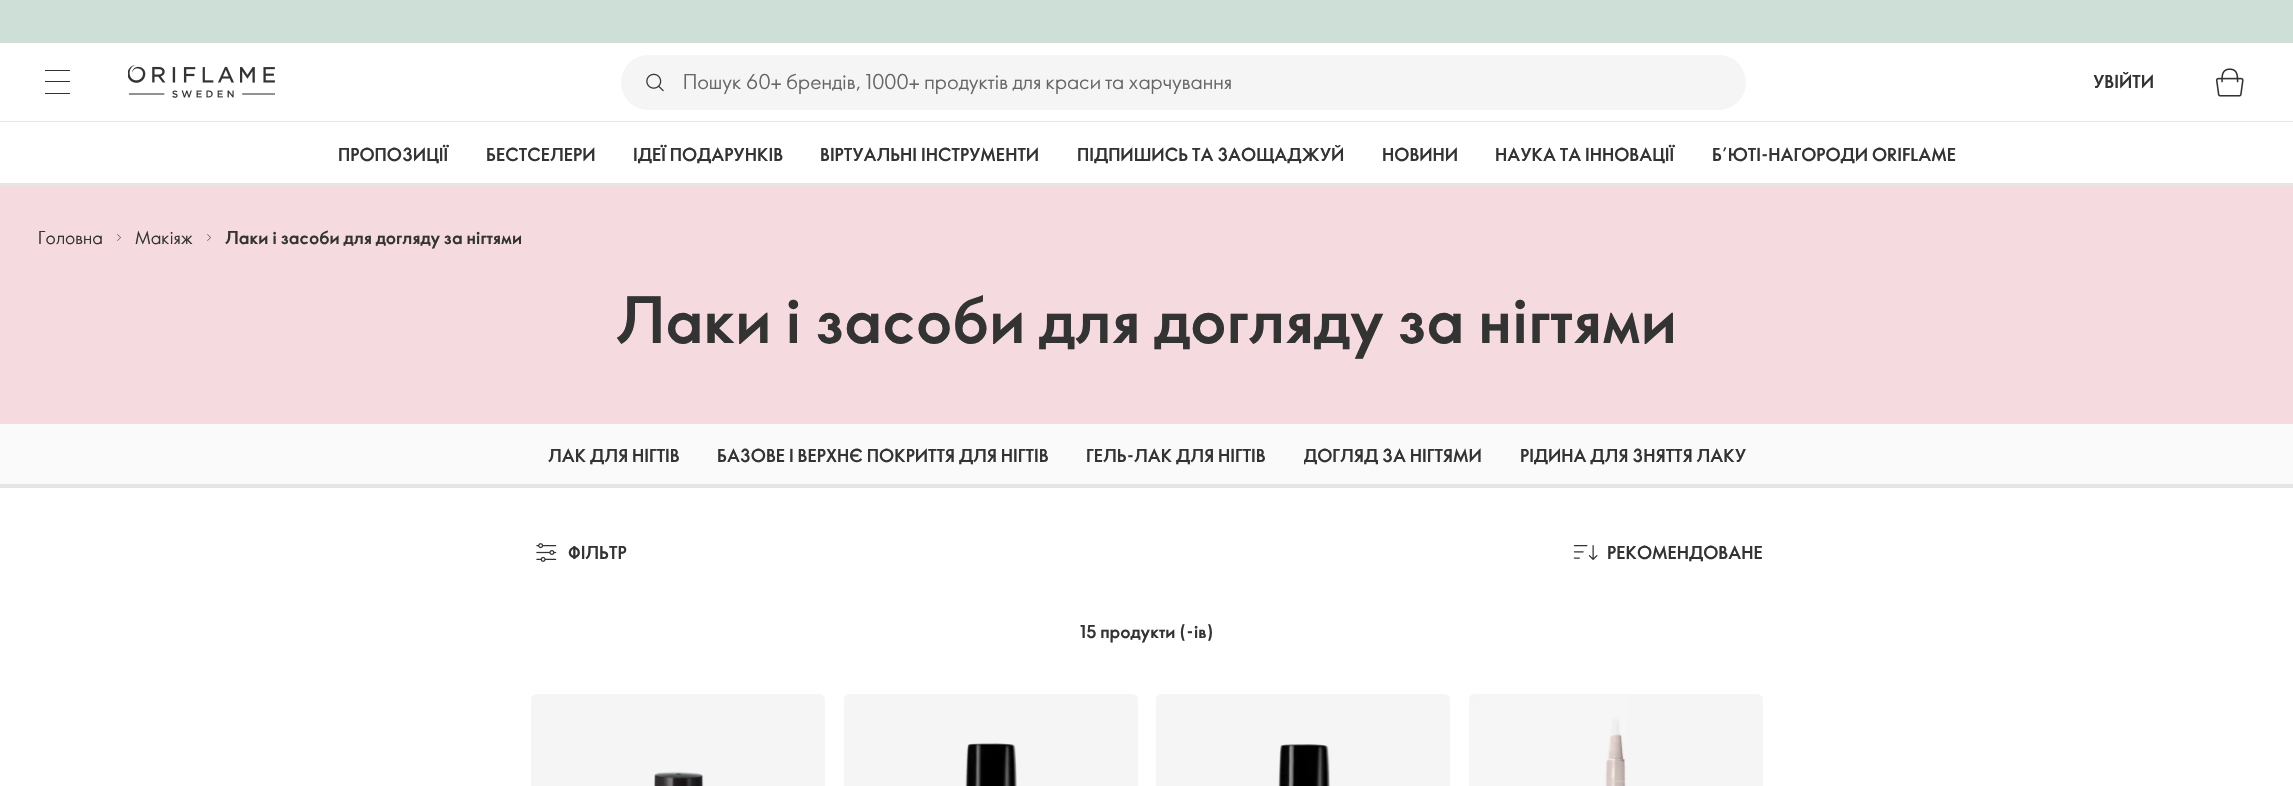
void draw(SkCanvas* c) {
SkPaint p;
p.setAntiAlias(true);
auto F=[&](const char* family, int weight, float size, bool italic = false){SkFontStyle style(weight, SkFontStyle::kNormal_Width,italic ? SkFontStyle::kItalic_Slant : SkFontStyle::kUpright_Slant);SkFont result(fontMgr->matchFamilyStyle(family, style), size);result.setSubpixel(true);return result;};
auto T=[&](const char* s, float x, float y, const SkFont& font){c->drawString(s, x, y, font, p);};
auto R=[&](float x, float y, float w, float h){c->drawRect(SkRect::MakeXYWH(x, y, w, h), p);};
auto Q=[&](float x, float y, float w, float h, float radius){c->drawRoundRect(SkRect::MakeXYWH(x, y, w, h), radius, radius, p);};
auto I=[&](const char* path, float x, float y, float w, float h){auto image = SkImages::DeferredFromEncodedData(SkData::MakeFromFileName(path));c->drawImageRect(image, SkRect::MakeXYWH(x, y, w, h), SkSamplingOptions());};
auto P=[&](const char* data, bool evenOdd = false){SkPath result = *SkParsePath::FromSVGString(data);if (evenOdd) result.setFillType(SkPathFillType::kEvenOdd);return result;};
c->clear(0xffffffff);
p.setColor(0xffe5e5e5);
R(0,121,2293,1);
p.setColor(0xffcedfd7);
R(0,0,2293,43);
p.setColor(0xff333333);
R(45,70,25,1);
R(45,81,25,1);
R(45,93,25,1);
I("1.png",128,65,147,33);
p.setColor(0xfff5f5f5);
Q(621,55,1125,55,27.5);
I("2.png",646,73,18,19);
auto f1 = F("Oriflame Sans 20",400,20);
p.setColor(0xff666666);
T("Пошук 60+ брендів, 1000+ продуктів для краси та харчування",683,89,f1);
auto f2 = F("Oriflame Sans 20",700,17.5);
p.setColor(0xff333333);
T("УВІЙТИ",2093,88,f2);
I("3.png",2216,68,28,29);
T("ПРОПОЗИЦІЇ",338,161,f2);
T("БЕСТСЕЛЕРИ",486,161,f2);
T("ІДЕЇ ПОДАРУНКІВ",633,161,f2);
T("ВІРТУАЛЬНІ ІНСТРУМЕНТИ",820,161,f2);
T("ПІДПИШИСЬ ТА ЗАОЩАДЖУЙ",1077,161,f2);
T("НОВИНИ",1382,161,f2);
T("НАУКА ТА ІННОВАЦІЇ",1495,161,f2);
T("Б’ЮТІ-НАГОРОДИ ORIFLAME",1712,161,f2);
p.setColor(0xffe5e5e5);
R(0,183,2293,3);
p.setColor(0xfff5dadf);
R(0,186,2293,238);
auto f3 = F("Oriflame Sans 20",400,17.5);
p.setColor(0xff333333);
T("Головна",38,244,f3);
I("4.png",117,234,4,7);
T("Макіяж",135,244,f3);
I("4.png",207,234,4,7);
T("Лаки і засоби для догляду за нігтями",225,244,f2);
auto f4 = F("Oriflame Sans 20",700,62.5);
T("Лаки і засоби для догляду за нігтями",616,343,f4);
p.setColor(0xfffafafa);
R(0,424,2293,60);
p.setColor(0xff333333);
T("ЛАК ДЛЯ НІГТІВ",548,462,f2);
T("БАЗОВЕ І ВЕРХНЄ ПОКРИТТЯ ДЛЯ НІГТІВ",717,462,f2);
T("ГЕЛЬ-ЛАК ДЛЯ НІГТІВ",1086,462,f2);
c->save();
c->clipRect(SkRect::MakeXYWH(1304,424,179,64));
T("ДОГЛЯД ЗА НІГТЯМИ",1303,462,f2);
c->restore();
T("РІДИНА ДЛЯ ЗНЯТТЯ ЛАКУ",1520,462,f2);
p.setColor(0xffe5e5e5);
R(0,484,2293,4);
I("5.png",536,543,21,19);
p.setColor(0xff333333);
T("ФІЛЬТР",568,559,f2);
I("6.png",1573,545,25,15);
T("РЕКОМЕНДОВАНЕ",1607,559,f2);
T("15 продукти (-ів)",1080,638,f2);
p.setColor(0xfff5f5f5);
c->drawPath(P("M537 694h282c3.5 0 6 2.5 6 6v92h-294v-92c0-3.5 2.5-6 6-6z"),p);
I("7.png",654,771,50,15);
c->drawPath(P("M850 694h282c3.5 0 6 2.5 6 6v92h-294v-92c0-3.5 2.5-6 6-6z"),p);
I("8.png",965,743,52,43);
c->drawPath(P("M1162 694h282c3.5 0 6 2.5 6 6v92h-294v-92c0-3.5 2.5-6 6-6z"),p);
I("9.png",1278,744,52,42);
c->drawPath(P("M1475 694h282c3.5 0 6 2.5 6 6v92h-294v-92c0-3.5 2.5-6 6-6z"),p);
I("10.png",1470,695,156,91);
}
